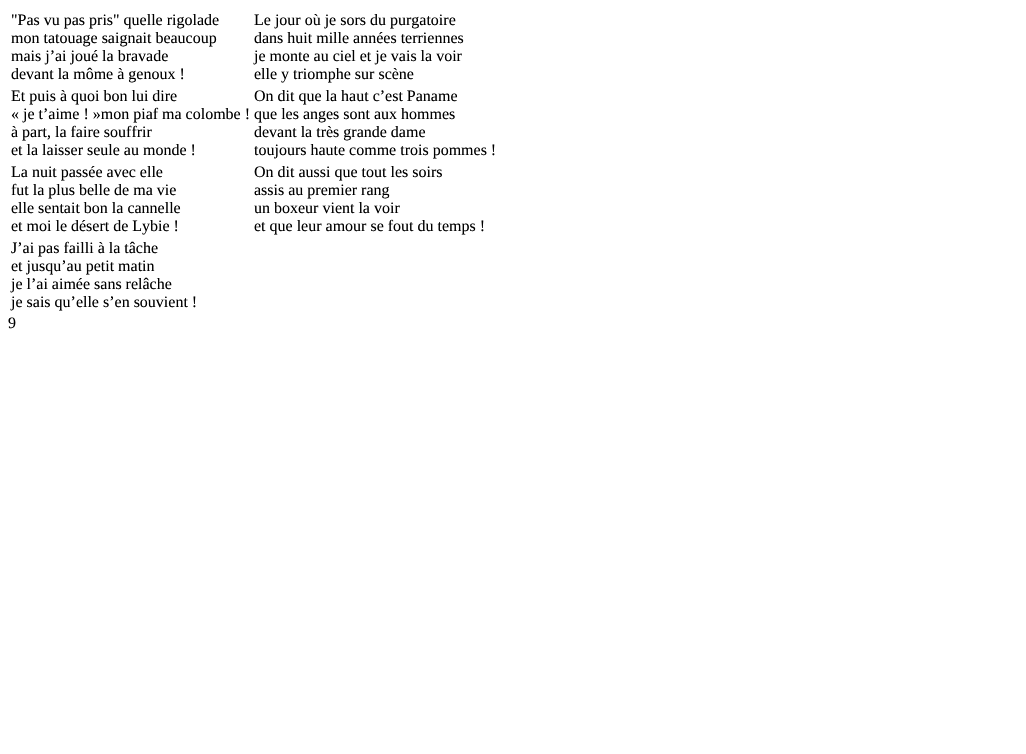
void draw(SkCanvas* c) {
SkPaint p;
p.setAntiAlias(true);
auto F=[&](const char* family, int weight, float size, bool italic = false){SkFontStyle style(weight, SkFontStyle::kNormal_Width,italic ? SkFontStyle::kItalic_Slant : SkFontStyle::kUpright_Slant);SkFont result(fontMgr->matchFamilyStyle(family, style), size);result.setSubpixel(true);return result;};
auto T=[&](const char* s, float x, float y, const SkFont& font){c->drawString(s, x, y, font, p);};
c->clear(0xffffffff);
auto f1 = F("Liberation Serif",400,16);
p.setColor(0xff000000);
T("\"Pas vu pas pris\" quelle rigolade",11,25,f1);
T("mon tatouage saignait beaucoup",11,43,f1);
T("mais j’ai joué la bravade",11,61,f1);
T("devant la môme à genoux !",11,79,f1);
T("Le jour où je sors du purgatoire",254,25,f1);
T("dans huit mille années terriennes",254,43,f1);
T("je monte au ciel et je vais la voir",254,61,f1);
T("elle y triomphe sur scène",254,79,f1);
T("Et puis à quoi bon lui dire",11,101,f1);
T("« je t’aime ! »mon piaf ma colombe ! que les anges sont aux hommes",11,119,f1);
T("à part, la faire souffrir",11,137,f1);
T("et la laisser seule au monde !",11,155,f1);
T("On dit que la haut c’est Paname",254,101,f1);
T("devant la très grande dame",254,137,f1);
T("toujours haute comme trois pommes !",254,155,f1);
T("La nuit passée avec elle",11,177,f1);
T("fut la plus belle de ma vie",11,195,f1);
T("elle sentait bon la cannelle",11,213,f1);
T("et moi le désert de Lybie !",11,231,f1);
T("On dit aussi que tout les soirs",254,177,f1);
T("assis au premier rang",254,195,f1);
T("un boxeur vient la voir",254,213,f1);
T("et que leur amour se fout du temps !",254,231,f1);
T("J’ai pas failli à la tâche",11,253,f1);
T("et jusqu’au petit matin",11,271,f1);
T("je l’ai aimée sans relâche",11,289,f1);
T("je sais qu’elle s’en souvient !",11,307,f1);
T("9",8,328,f1);
}
